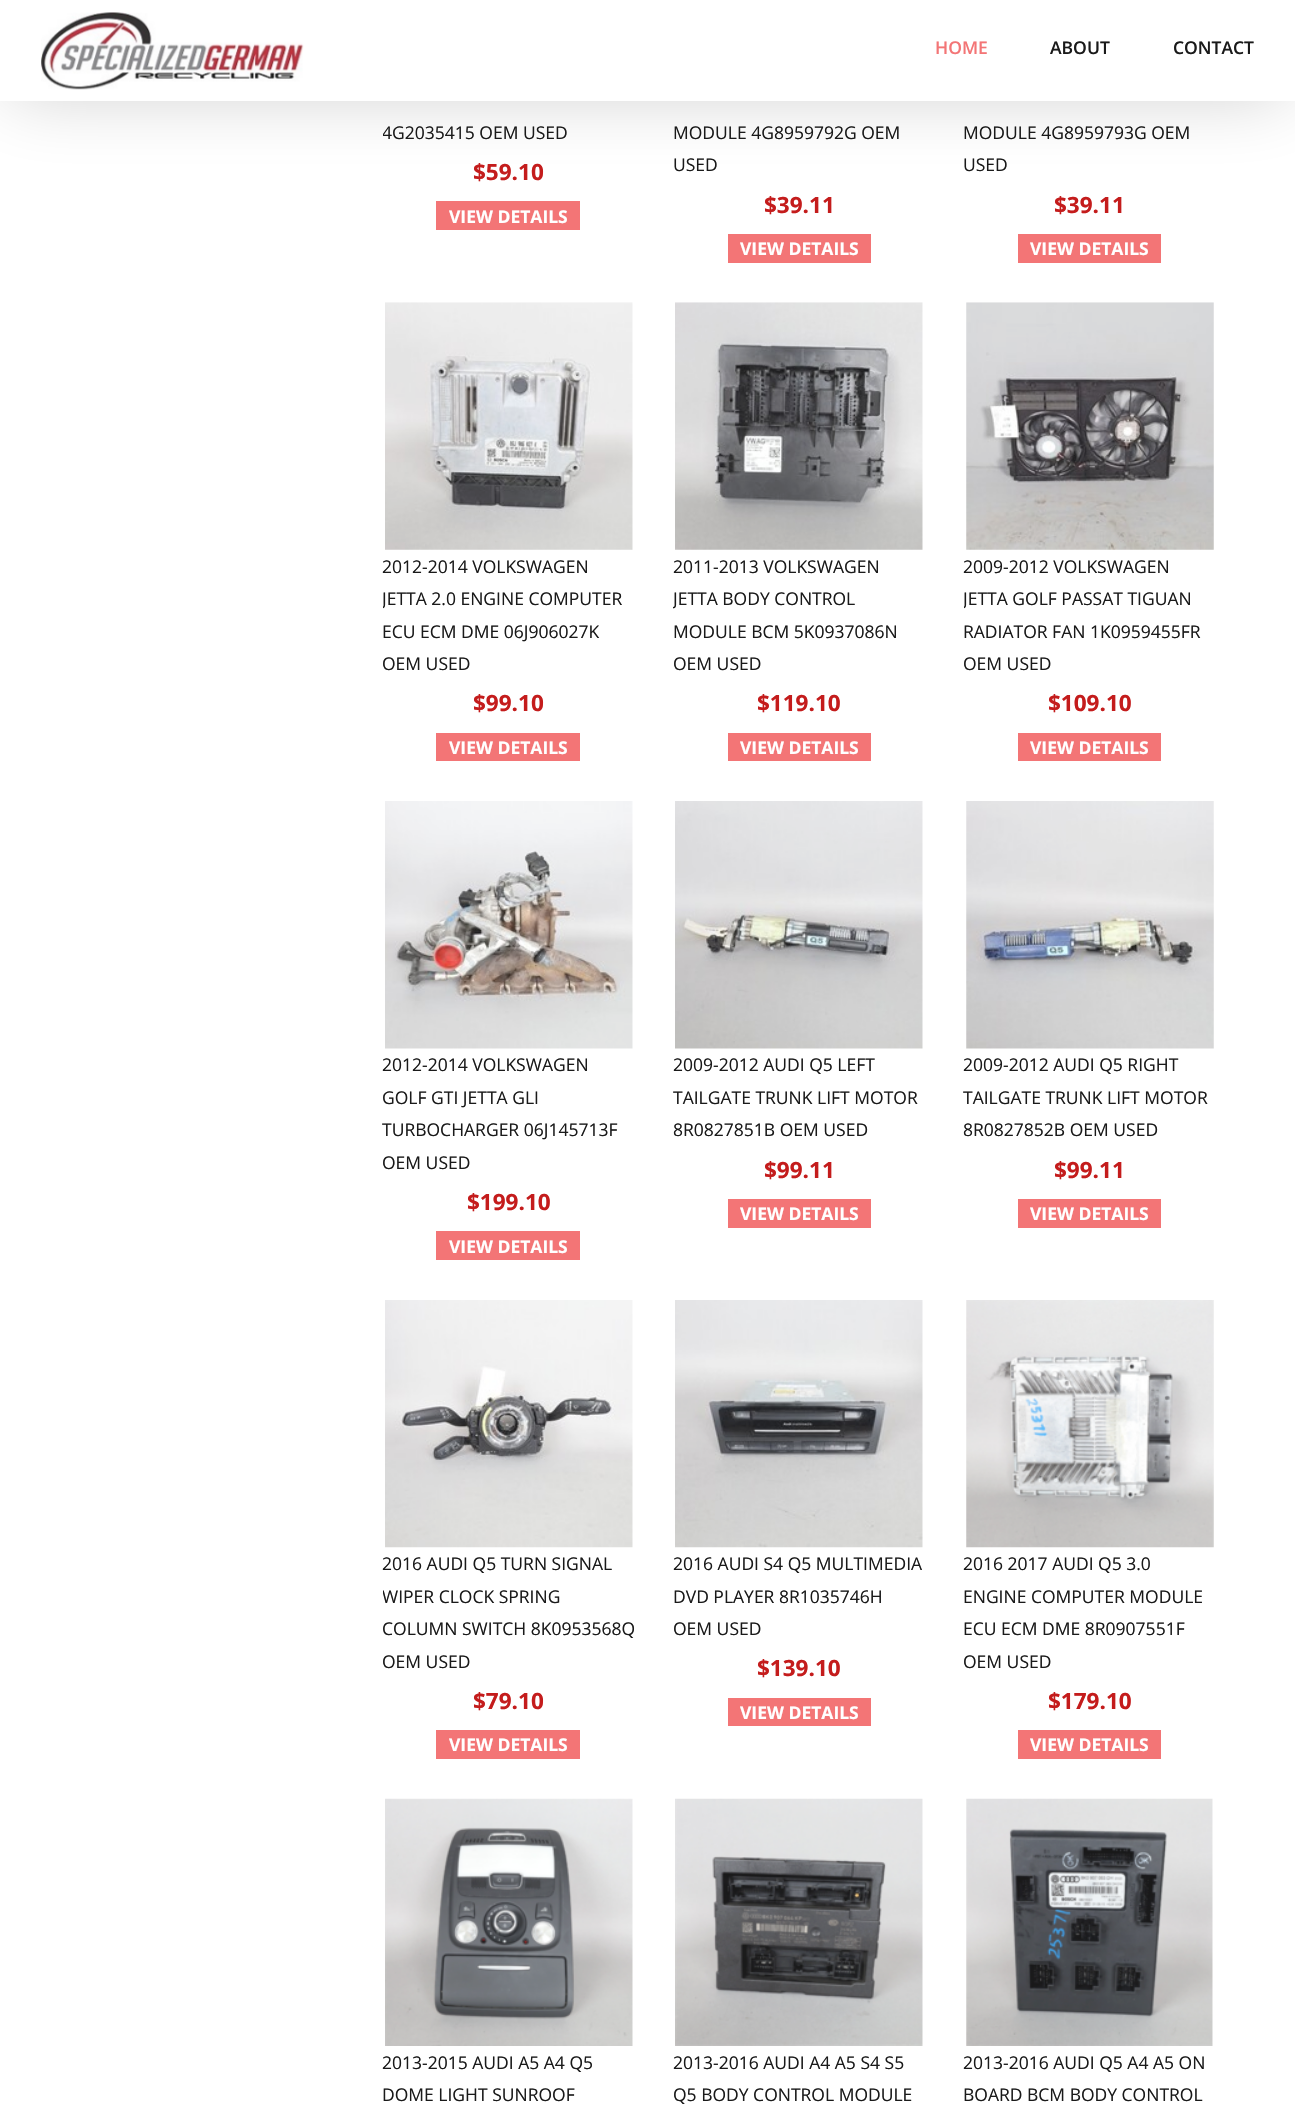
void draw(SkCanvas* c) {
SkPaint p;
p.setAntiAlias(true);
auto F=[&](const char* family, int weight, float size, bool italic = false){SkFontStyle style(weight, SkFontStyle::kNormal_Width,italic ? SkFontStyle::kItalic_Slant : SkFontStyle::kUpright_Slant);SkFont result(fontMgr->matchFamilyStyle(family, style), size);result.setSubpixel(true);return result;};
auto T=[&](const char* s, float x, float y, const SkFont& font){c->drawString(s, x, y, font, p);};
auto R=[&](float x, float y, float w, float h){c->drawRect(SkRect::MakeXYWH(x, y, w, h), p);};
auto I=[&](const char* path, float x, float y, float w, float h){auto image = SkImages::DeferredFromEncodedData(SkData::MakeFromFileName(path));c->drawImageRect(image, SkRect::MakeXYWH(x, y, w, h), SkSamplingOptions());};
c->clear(0xffffffff);
p.setColor(0xfff37576);
R(436,201,144,29);
p.setColor(0x330a0a0a);
p.setMaskFilter(SkMaskFilter::MakeBlur(kNormal_SkBlurStyle, 37.5));
c->drawRect(SkRect::MakeXYWH(8,8,1280,86),p);
p.setMaskFilter(nullptr);
p.setColor(0xffffffff);
R(0,0,1295,101);
I("1.png",41,12,263,78);
auto f1 = F("Open Sans",600,17.5);
p.setColor(0xfff37576);
T("HOME",935,54,f1);
p.setColor(0xff1a1a1a);
T("ABOUT",1050,54,f1);
T("CONTACT",1173,54,f1);
c->save();
c->clipRect(SkRect::MakeXYWH(383,0,252,233));
auto f2 = F("Open Sans",400,17.5);
T("4G2035415 OEM USED",382,139,f2);
c->restore();
auto f3 = F("Open Sans",700,22.5);
p.setColor(0xffc41c1c);
T("$59.10",473,180,f3);
auto f4 = F("Open Sans",700,17.5);
p.setColor(0xffffffff);
T("VIEW DETAILS",449,223,f4);
p.setColor(0xff1a1a1a);
T("MODULE 4G8959792G OEM",673,139,f2);
T("USED",673,171,f2);
p.setColor(0xffc41c1c);
T("$39.11",764,213,f3);
p.setColor(0xfff37576);
R(728,234,143,29);
p.setColor(0xffffffff);
T("VIEW DETAILS",740,255,f4);
p.setColor(0xff1a1a1a);
T("MODULE 4G8959793G OEM",963,139,f2);
T("USED",963,171,f2);
p.setColor(0xffc41c1c);
T("$39.11",1054,213,f3);
p.setColor(0xfff37576);
R(1018,234,143,29);
p.setColor(0xffffffff);
T("VIEW DETAILS",1030,255,f4);
I("2.png",385,302,248,248);
p.setColor(0xff1a1a1a);
T("2012-2014 VOLKSWAGEN",382,573,f2);
c->save();
c->clipRect(SkRect::MakeXYWH(383,303,252,461));
T("JETTA 2.0 ENGINE COMPUTER",382,605,f2);
c->restore();
T("ECU ECM DME 06J906027K",382,638,f2);
T("OEM USED",382,670,f2);
p.setColor(0xffc41c1c);
T("$99.10",473,711,f3);
p.setColor(0xfff37576);
R(436,733,144,28);
p.setColor(0xffffffff);
T("VIEW DETAILS",449,754,f4);
I("3.png",675,302,248,248);
p.setColor(0xff1a1a1a);
T("2011-2013 VOLKSWAGEN",673,573,f2);
c->save();
c->clipRect(SkRect::MakeXYWH(673,303,253,461));
T("JETTA BODY CONTROL",673,605,f2);
c->restore();
T("MODULE BCM 5K0937086N",673,638,f2);
T("OEM USED",673,670,f2);
p.setColor(0xffc41c1c);
T("$119.10",757,711,f3);
p.setColor(0xfff37576);
R(728,733,143,28);
p.setColor(0xffffffff);
T("VIEW DETAILS",740,754,f4);
I("4.png",966,302,248,248);
p.setColor(0xff1a1a1a);
T("2009-2012 VOLKSWAGEN",963,573,f2);
c->save();
c->clipRect(SkRect::MakeXYWH(964,303,252,461));
T("JETTA GOLF PASSAT TIGUAN",963,605,f2);
c->restore();
T("RADIATOR FAN 1K0959455FR",963,638,f2);
T("OEM USED",963,670,f2);
p.setColor(0xffc41c1c);
T("$109.10",1048,711,f3);
p.setColor(0xfff37576);
R(1018,733,143,28);
p.setColor(0xffffffff);
T("VIEW DETAILS",1030,754,f4);
I("5.png",385,801,248,248);
p.setColor(0xff1a1a1a);
T("2012-2014 VOLKSWAGEN",382,1071,f2);
T("GOLF GTI JETTA GLI",382,1104,f2);
T("TURBOCHARGER 06J145713F",382,1136,f2);
T("OEM USED",382,1169,f2);
p.setColor(0xffc41c1c);
T("$199.10",467,1210,f3);
p.setColor(0xfff37576);
R(436,1231,144,29);
p.setColor(0xffffffff);
T("VIEW DETAILS",449,1253,f4);
I("6.png",675,801,248,248);
p.setColor(0xff1a1a1a);
T("2009-2012 AUDI Q5 LEFT",673,1071,f2);
T("TAILGATE TRUNK LIFT MOTOR",673,1104,f2);
T("8R0827851B OEM USED",673,1136,f2);
p.setColor(0xffc41c1c);
T("$99.11",764,1178,f3);
p.setColor(0xfff37576);
R(728,1199,143,29);
p.setColor(0xffffffff);
T("VIEW DETAILS",740,1220,f4);
I("7.png",966,801,248,248);
p.setColor(0xff1a1a1a);
T("2009-2012 AUDI Q5 RIGHT",963,1071,f2);
T("TAILGATE TRUNK LIFT MOTOR",963,1104,f2);
T("8R0827852B OEM USED",963,1136,f2);
p.setColor(0xffc41c1c);
T("$99.11",1054,1178,f3);
p.setColor(0xfff37576);
R(1018,1199,143,29);
p.setColor(0xffffffff);
T("VIEW DETAILS",1030,1220,f4);
I("8.png",385,1300,248,248);
p.setColor(0xff1a1a1a);
T("2016 AUDI Q5 TURN SIGNAL",382,1570,f2);
c->save();
c->clipRect(SkRect::MakeXYWH(383,1300,252,461));
T("WIPER CLOCK SPRING",382,1603,f2);
c->restore();
T("COLUMN SWITCH 8K0953568Q",382,1635,f2);
T("OEM USED",382,1668,f2);
p.setColor(0xffc41c1c);
T("$79.10",473,1709,f3);
p.setColor(0xfff37576);
R(436,1730,144,29);
p.setColor(0xffffffff);
T("VIEW DETAILS",449,1751,f4);
I("9.png",675,1300,248,248);
p.setColor(0xff1a1a1a);
T("2016 AUDI S4 Q5 MULTIMEDIA",673,1570,f2);
T("DVD PLAYER 8R1035746H",673,1603,f2);
T("OEM USED",673,1635,f2);
p.setColor(0xffc41c1c);
T("$139.10",757,1676,f3);
p.setColor(0xfff37576);
R(728,1698,143,28);
p.setColor(0xffffffff);
T("VIEW DETAILS",740,1719,f4);
I("10.png",966,1300,248,248);
p.setColor(0xff1a1a1a);
T("2016 2017 AUDI Q5 3.0",963,1570,f2);
T("ENGINE COMPUTER MODULE",963,1603,f2);
T("ECU ECM DME 8R0907551F",963,1635,f2);
T("OEM USED",963,1668,f2);
p.setColor(0xffc41c1c);
T("$179.10",1048,1709,f3);
p.setColor(0xfff37576);
R(1018,1730,143,29);
p.setColor(0xffffffff);
T("VIEW DETAILS",1030,1751,f4);
I("11.png",385,1798,248,248);
p.setColor(0xff1a1a1a);
T("2013-2015 AUDI A5 A4 Q5",382,2069,f2);
T("DOME LIGHT SUNROOF",382,2101,f2);
I("12.png",675,1798,248,248);
T("2013-2016 AUDI A4 A5 S4 S5",673,2069,f2);
T("Q5 BODY CONTROL MODULE",673,2101,f2);
I("13.png",966,1798,247,248);
T("2013-2016 AUDI Q5 A4 A5 ON",963,2069,f2);
T("BOARD BCM BODY CONTROL",963,2101,f2);
}
